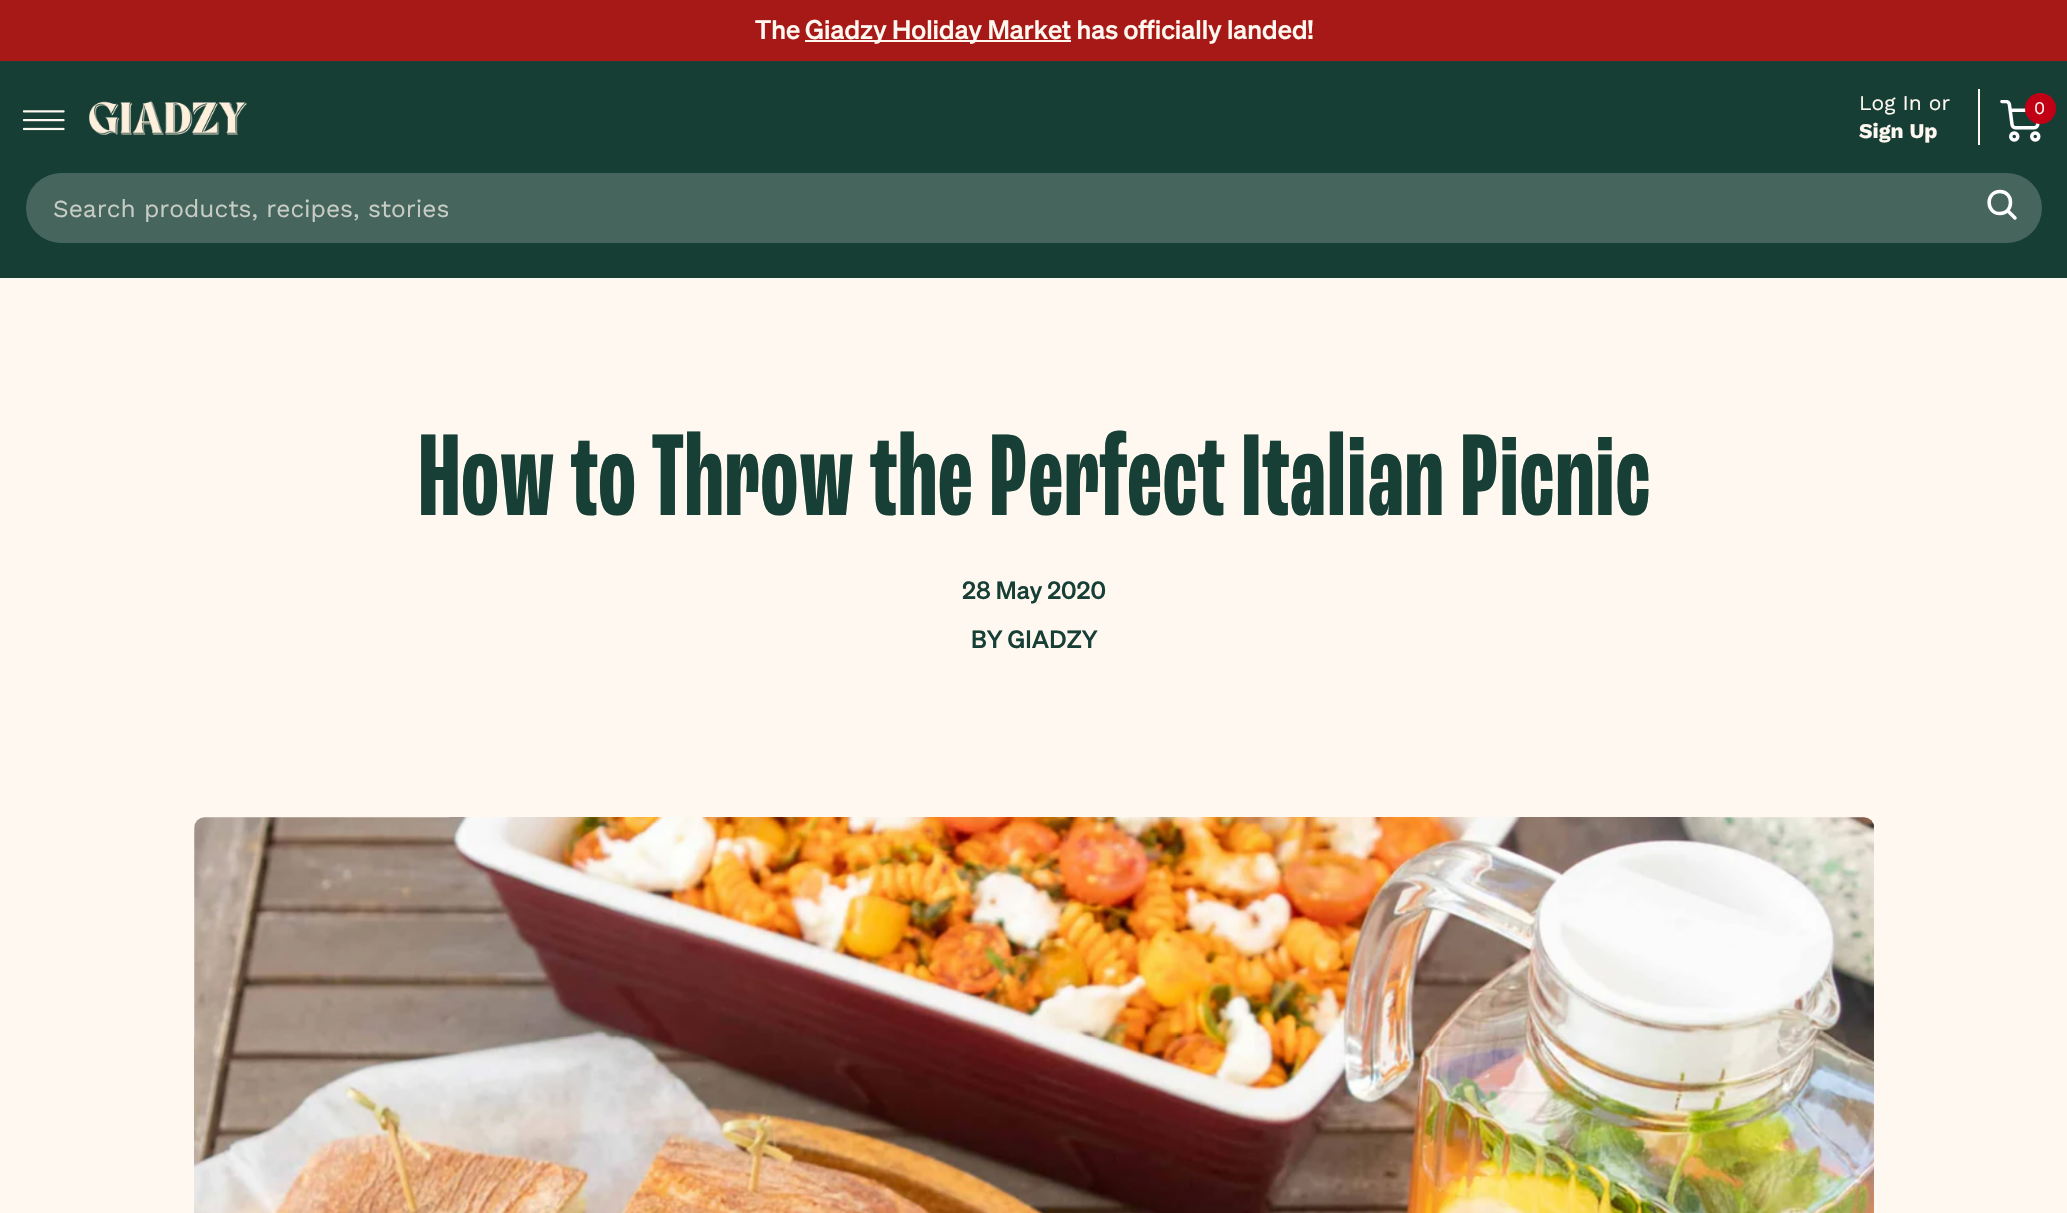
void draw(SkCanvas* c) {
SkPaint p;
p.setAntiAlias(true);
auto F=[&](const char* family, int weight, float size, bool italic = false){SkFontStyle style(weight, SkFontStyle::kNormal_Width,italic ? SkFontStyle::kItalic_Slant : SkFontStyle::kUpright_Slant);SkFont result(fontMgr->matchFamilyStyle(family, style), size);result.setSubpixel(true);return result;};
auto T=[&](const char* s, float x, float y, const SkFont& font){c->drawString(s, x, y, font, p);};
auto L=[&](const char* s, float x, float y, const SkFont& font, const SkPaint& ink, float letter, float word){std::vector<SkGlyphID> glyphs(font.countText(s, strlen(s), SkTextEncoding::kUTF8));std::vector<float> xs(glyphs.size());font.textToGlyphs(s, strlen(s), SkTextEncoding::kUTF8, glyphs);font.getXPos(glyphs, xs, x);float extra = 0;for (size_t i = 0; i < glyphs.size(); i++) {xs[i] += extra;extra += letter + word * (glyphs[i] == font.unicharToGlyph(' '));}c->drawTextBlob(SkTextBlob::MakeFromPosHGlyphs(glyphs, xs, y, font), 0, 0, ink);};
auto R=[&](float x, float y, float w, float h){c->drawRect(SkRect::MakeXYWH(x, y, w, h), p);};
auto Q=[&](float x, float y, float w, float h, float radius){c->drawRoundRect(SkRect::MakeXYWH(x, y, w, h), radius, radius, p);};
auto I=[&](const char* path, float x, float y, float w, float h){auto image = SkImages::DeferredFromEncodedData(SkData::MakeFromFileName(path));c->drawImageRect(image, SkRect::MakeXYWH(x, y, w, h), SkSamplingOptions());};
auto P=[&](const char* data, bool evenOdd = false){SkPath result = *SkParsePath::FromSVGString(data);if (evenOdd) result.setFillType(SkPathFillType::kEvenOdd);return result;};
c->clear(0xfffef8f1);
p.setColor(0xffa71917);
R(0,0,2067,61);
auto f1 = F("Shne",500,26.25);
p.setColor(0xfffef8f1);
T("The",755,39,f1);
R(805,40,266,2);
T("Giadzy Holiday Market has officially landed!",805,39,f1);
p.setColor(0xff163e35);
R(0,61,2067,217);
I("1.png",23,110,42,21);
I("2.png",89,101,158,34);
p.setColor(0xfffef8f1);
R(1978,89,2,56);
auto f2 = F("Work Sans",400,21);
T("Log In or",1859,110,f2);
auto f3 = F("Work Sans",700,21);
T("Sign Up",1859,138,f3);
I("3.png",2000,100,41,42);
p.setColor(0xffc10016);
c->drawCircle(2040.5,108.5,15.5,p);
auto f4 = F("Work Sans",400,18);
p.setColor(0xfffef8f1);
L("0",2034,114,f4,p,2,0);
p.setColor(0xff45655d);
Q(26,173,2016,70,35);
c->save();
c->clipRect(SkRect::MakeXYWH(53,194,1937,28));
auto f5 = F("Work Sans",400,24.5);
p.setColor(0xffc7ccc5);
T("Search products, recipes, stories",53,217,f5);
c->restore();
p.setStroke(true);
p.setStrokeWidth(3.5);
p.setStrokeCap(SkPaint::kRound_Cap);
p.setStrokeJoin(SkPaint::kRound_Join);
p.setColor(0xffffffff);
c->drawPath(P("M2000 213.5c14 0 14-22 0-22c-14.5 0-14.5 22 0 22zm15 4.5l-7.5-7.5"),p);
auto f6 = F("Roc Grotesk",700,122.5);
p.setStroke(false);
p.setColor(0xff173f35);
T("How to Throw the Perfect Italian Picnic",418,515,f6);
auto f7 = F("Shne",500,24.5);
T("28 May 2020",962,599,f7);
T("BY GIADZY",971,648,f7);
I("4.png",194,817,1680,396);
}
